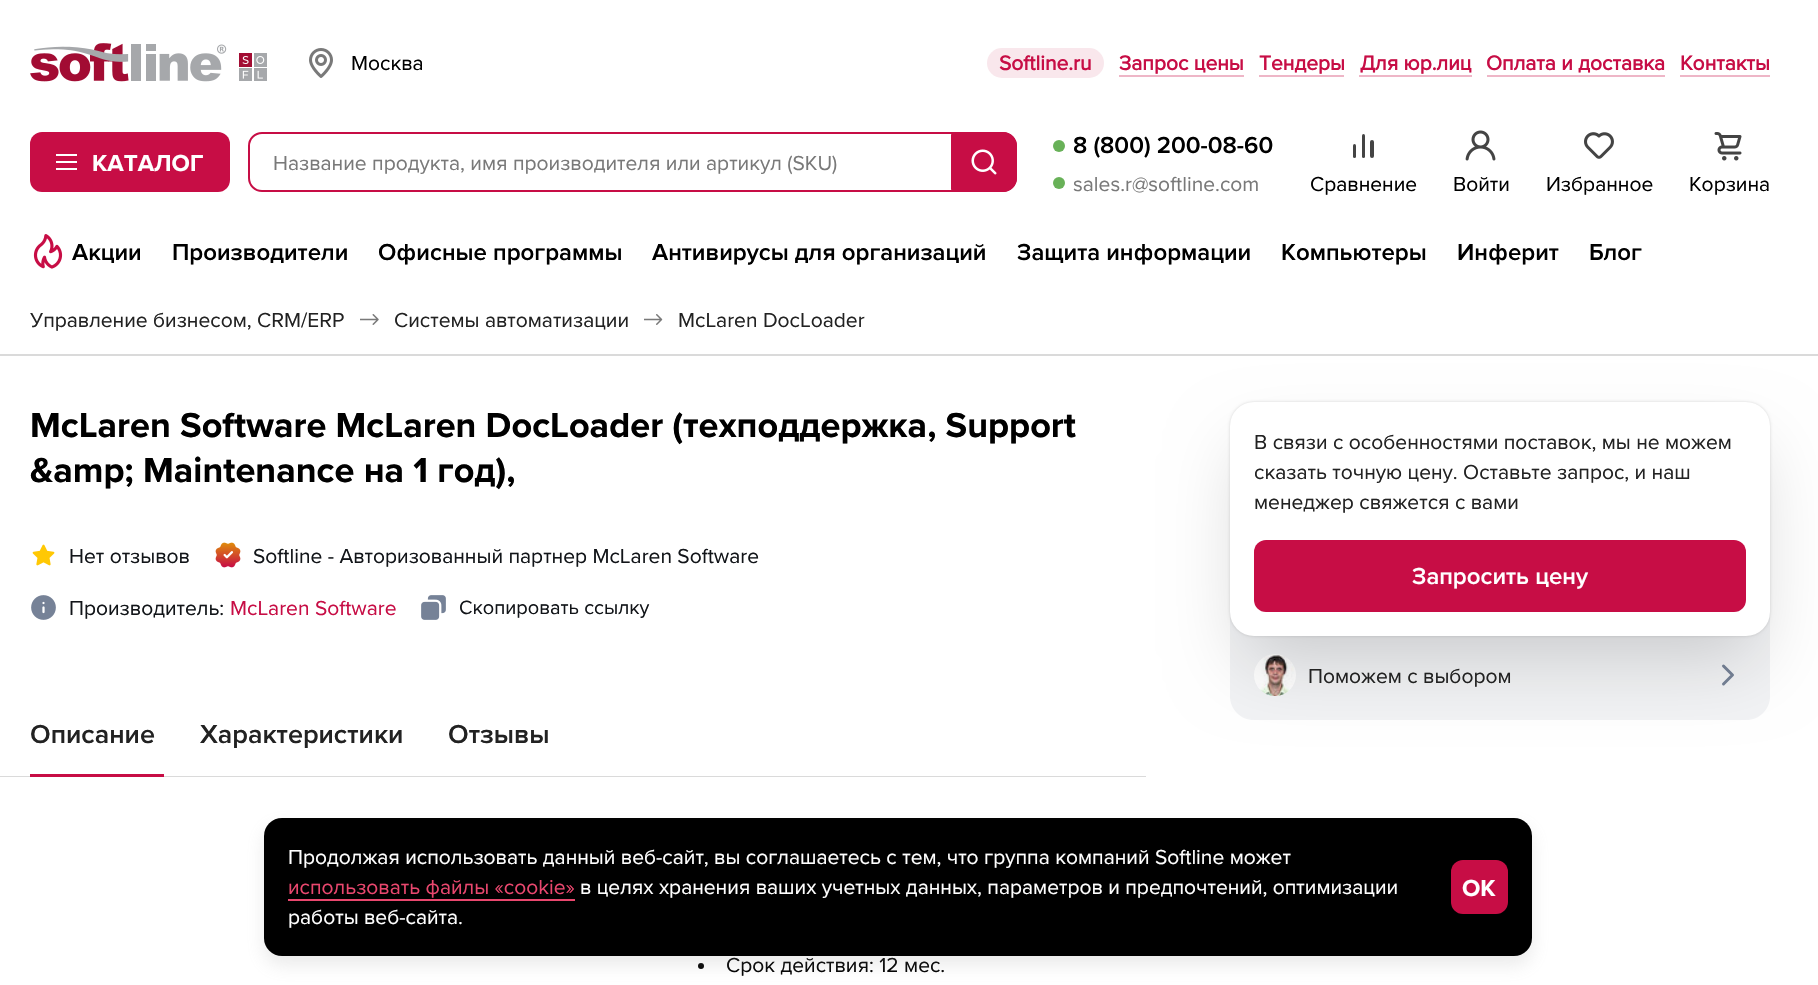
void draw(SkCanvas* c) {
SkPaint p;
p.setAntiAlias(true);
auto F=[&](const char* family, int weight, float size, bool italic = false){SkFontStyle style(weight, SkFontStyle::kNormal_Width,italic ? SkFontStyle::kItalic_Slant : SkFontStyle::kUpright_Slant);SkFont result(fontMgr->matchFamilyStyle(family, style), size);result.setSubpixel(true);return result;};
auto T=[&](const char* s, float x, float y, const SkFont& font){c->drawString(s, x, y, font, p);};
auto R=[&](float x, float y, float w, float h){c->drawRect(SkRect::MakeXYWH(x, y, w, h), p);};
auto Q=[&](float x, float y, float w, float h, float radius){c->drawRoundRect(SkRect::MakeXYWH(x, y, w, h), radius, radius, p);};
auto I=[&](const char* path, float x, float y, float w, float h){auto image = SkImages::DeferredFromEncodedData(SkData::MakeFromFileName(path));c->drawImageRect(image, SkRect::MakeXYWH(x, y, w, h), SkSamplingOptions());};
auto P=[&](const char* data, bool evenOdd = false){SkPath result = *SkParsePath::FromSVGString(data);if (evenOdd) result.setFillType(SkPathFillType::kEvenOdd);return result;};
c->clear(0xffffffff);
I("1.png",30,43,237,39);
I("2.png",309,48,24,30);
auto f1 = F("Proxima Nova",400,21);
p.setColor(0xff000000);
T("Москва",351,70,f1);
p.setColor(0xfff9e7ec);
Q(987,48,117,30,15);
auto f2 = F("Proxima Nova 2",700,21);
p.setColor(0xffc70d45);
T("Softline.ru",999,70,f2);
T("Запрос цены",1119,70,f2);
p.setColor(0xffeeb6c7);
R(1119,75,125,2);
p.setColor(0xffc70d45);
T("Тендеры",1259,70,f2);
p.setColor(0xffeeb6c7);
R(1259,75,85,2);
p.setColor(0xffc70d45);
T("Для юр.лиц",1360,70,f2);
p.setColor(0xffeeb6c7);
R(1359,75,113,2);
p.setColor(0xffc70d45);
T("Оплата и доставка",1486,70,f2);
p.setColor(0xffeeb6c7);
R(1487,75,178,2);
p.setColor(0xffc70d45);
T("Контакты",1680,70,f2);
p.setColor(0xffeeb6c7);
R(1680,75,90,2);
p.setColor(0xffc70d45);
Q(30,132,200,60,12);
p.setColor(0xffffffff);
R(56,154,21,2);
R(56,161,21,2);
R(56,168,21,2);
auto f3 = F("Proxima Nova",700,24);
T("КАТАЛОГ",92,171,f3);
p.setStroke(true);
p.setStrokeWidth(2);
p.setColor(0xffc70d45);
c->drawRoundRect(SkRect::MakeXYWH(249,133,767,58),13,13,p);
p.setStroke(false);
p.setColor(0xff797979);
T("Название продукта, имя производителя или артикул (SKU)",273,170,f1);
p.setColor(0xffc70d45);
c->drawPath(P("M954 132h49c7.5 0 14 6.5 14 14v32c0 7.5-6.5 14-14 14h-49c-1.5 0-3-1.5-3-3v-54c0-1.5 1.5-3 3-3z"),p);
I("3.png",971,149,26,26);
p.setColor(0xff68b158);
c->drawCircle(1059,146,6,p);
auto f4 = F("Proxima Nova",600,24);
p.setColor(0xff000000);
T("8 (800) 200-08-60",1073,153,f4);
p.setColor(0xff68b158);
c->drawCircle(1059,183,6,p);
p.setColor(0xff797979);
T("sales.r@softline.com",1073,191,f1);
p.setColor(0xff444444);
Q(1353,144,3,14,1.5);
Q(1362,134,3,24,1.5);
Q(1370,140,4,18,2);
p.setColor(0xff000000);
T("Сравнение",1310,191,f1);
I("4.png",1465,130,31,31);
T("Войти",1453,191,f1);
I("5.png",1584,132,30,27);
T("Избранное",1546,191,f1);
I("6.png",1714,132,28,29);
T("Корзина",1689,191,f1);
I("7.png",33,234,30,35);
T("Акции",72,260,f4);
T("Производители",172,260,f4);
T("Офисные программы",378,260,f4);
T("Антивирусы для организаций",652,260,f4);
T("Защита информации",1017,260,f4);
T("Компьютеры",1281,260,f4);
T("Инферит",1457,260,f4);
T("Блог",1589,260,f4);
p.setColor(0xff222222);
T("Управление бизнесом, CRM/ERP",30,327,f1);
I("8.png",360,314,19,11);
T("Системы автоматизации",394,327,f1);
I("9.png",644,314,19,11);
T("McLaren DocLoader",678,327,f1);
p.setColor(0xffdadada);
R(0,354,1818,2);
auto f5 = F("Proxima Nova",700,36);
p.setColor(0xff000000);
T("McLaren Software McLaren DocLoader (техподдержка, Support",30,437,f5);
T("&amp; Maintenance на 1 год),",30,482,f5);
I("10.png",32,544,23,22);
p.setColor(0xff121519);
T("Нет отзывов",69,563,f1);
I("11.png",215,542,26,26);
T("Softline - Авторизованный партнер McLaren Software",253,563,f1);
I("12.png",31,595,25,25);
T("Производитель:",69,615,f1);
p.setColor(0xffc70d45);
T("McLaren Software",230,615,f1);
I("13.png",421,595,25,25);
auto f6 = F("Proxima Nova",400,20);
p.setColor(0xff121519);
T("Скопировать ссылку",459,614,f6);
p.setColor(0xfff2f3f5);
c->drawPath(P("M1230 612h540v84c0 13.5-10.5 24-24 24h-492c-13.5 0-24-10.5-24-24z"),p);
p.setColor(0x26000000);
p.setMaskFilter(SkMaskFilter::MakeBlur(kNormal_SkBlurStyle, 1.5));
c->drawRoundRect(SkRect::MakeXYWH(1230,402,540,234),24,24,p);
p.setMaskFilter(nullptr);
I("14.png",1254,654,42,42);
p.setStroke(true);
p.setStrokeWidth(3);
p.setStrokeCap(SkPaint::kRound_Cap);
p.setStrokeJoin(SkPaint::kRound_Join);
p.setColor(0xff768297);
c->drawPath(P("M1723.5 684l9-9l-9-9"),p);
p.setStroke(false);
p.setColor(0x29000000);
p.setMaskFilter(SkMaskFilter::MakeBlur(kNormal_SkBlurStyle, 36));
c->drawRoundRect(SkRect::MakeXYWH(1242,450,516,210),12,12,p);
p.setMaskFilter(nullptr);
p.setColor(0xffffffff);
Q(1230,402,540,234,24);
p.setColor(0xff222222);
T("В связи с особенностями поставок, мы не можем",1254,449,f1);
T("сказать точную цену. Оставьте запрос, и наш",1254,479,f1);
T("менеджер свяжется с вами",1254,509,f1);
p.setColor(0xffc70d45);
Q(1254,540,492,72,12);
p.setColor(0xffffffff);
T("Запросить цену",1412,584,f4);
p.setColor(0xff222222);
T("Поможем с выбором",1308,683,f1);
auto f7 = F("Proxima Nova",600,27);
T("Описание",30,743,f7);
p.setColor(0xffdadada);
R(0,776,1146,1);
p.setColor(0xffc70d45);
R(30,774,134,3);
p.setColor(0xff222222);
T("Характеристики",200,743,f7);
T("Отзывы",448,743,f7);
p.setColor(0xff000000);
c->drawCircle(701,966,3,p);
T("Срок действия: 12 мес.",726,972,f1);
p.setColor(0x33989898);
p.setMaskFilter(SkMaskFilter::MakeBlur(kNormal_SkBlurStyle, 9));
c->drawRoundRect(SkRect::MakeXYWH(264,827,1268,138),18,18,p);
p.setMaskFilter(nullptr);
p.setColor(0xff000000);
Q(264,818,1268,138,18);
p.setColor(0xffffffff);
T("Продолжая использовать данный веб-сайт, вы соглашаетесь с тем, что группа компаний Softline может",288,864,f1);
p.setColor(0xffe9476e);
T("использовать файлы «cookie»",288,894,f1);
R(288,899,287,2);
p.setColor(0xffffffff);
T("в целях хранения ваших учетных данных, параметров и предпочтений, оптимизации",580,894,f1);
T("работы веб-сайта.",288,924,f1);
p.setColor(0xffc70d45);
Q(1451,860,57,54,12);
p.setColor(0xffffffff);
T("OK",1462,896,f3);
}
